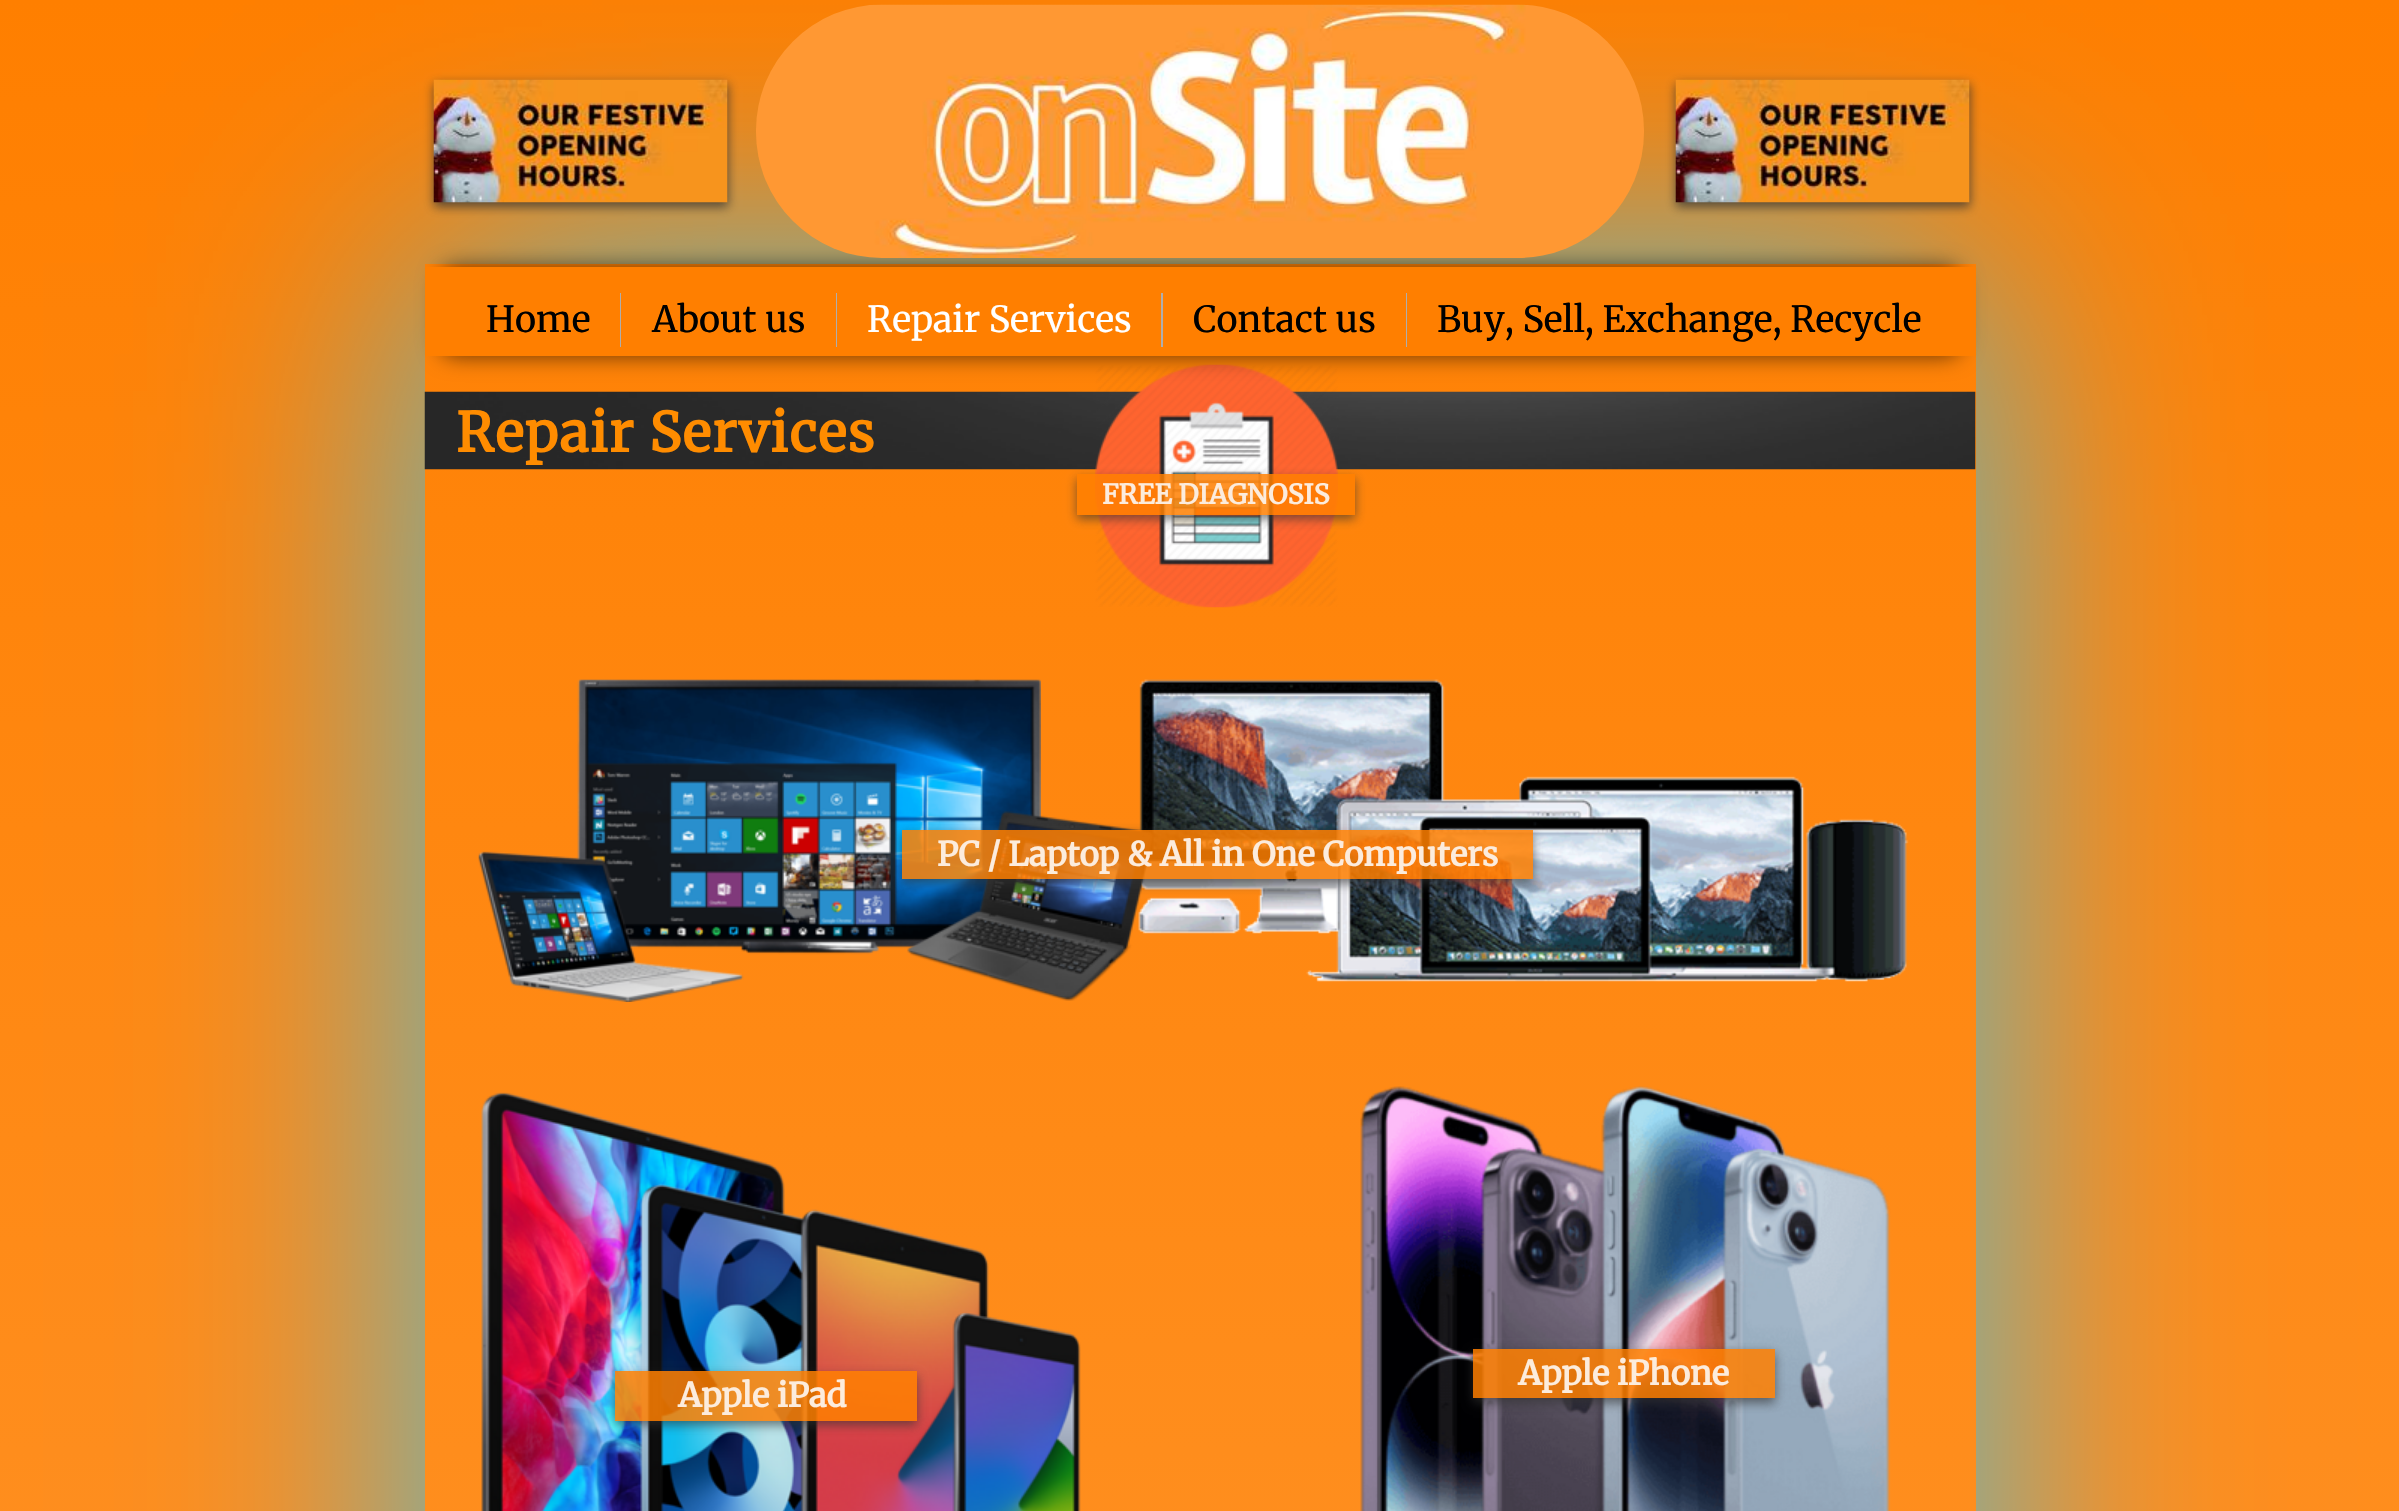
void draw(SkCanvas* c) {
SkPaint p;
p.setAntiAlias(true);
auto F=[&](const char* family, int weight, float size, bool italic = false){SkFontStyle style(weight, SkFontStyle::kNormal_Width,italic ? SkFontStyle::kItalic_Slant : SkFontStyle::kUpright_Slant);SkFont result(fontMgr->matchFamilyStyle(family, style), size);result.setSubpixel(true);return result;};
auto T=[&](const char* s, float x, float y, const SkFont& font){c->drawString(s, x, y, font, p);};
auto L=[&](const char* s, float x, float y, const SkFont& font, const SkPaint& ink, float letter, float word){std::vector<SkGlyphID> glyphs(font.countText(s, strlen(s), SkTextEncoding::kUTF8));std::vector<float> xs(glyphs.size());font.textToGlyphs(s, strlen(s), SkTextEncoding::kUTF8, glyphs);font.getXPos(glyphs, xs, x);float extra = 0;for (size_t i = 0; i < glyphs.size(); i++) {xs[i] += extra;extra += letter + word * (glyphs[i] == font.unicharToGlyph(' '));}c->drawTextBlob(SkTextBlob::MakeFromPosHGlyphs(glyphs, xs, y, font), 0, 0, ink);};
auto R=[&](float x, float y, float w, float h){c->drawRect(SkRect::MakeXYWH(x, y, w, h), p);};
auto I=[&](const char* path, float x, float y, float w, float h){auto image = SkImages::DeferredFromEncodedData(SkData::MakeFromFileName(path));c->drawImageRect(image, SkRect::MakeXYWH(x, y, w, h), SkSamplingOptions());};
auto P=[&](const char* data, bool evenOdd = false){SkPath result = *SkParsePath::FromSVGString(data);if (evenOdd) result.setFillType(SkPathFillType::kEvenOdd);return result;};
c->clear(0xffffffff);
I("1.png",0,0,2399,1511);
c->save();
c->clipPath(P("M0 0h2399v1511h-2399zm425 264h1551v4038h-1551z",true),true);
p.setColor(0xff4cbbd6);
p.setMaskFilter(SkMaskFilter::MakeBlur(kNormal_SkBlurStyle, 150));
c->drawRect(SkRect::MakeXYWH(425,264,1551,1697),p);
p.setMaskFilter(nullptr);
c->restore();
p.setColor(0xbf323232);
p.setMaskFilter(SkMaskFilter::MakeBlur(kNormal_SkBlurStyle, 5));
c->drawRect(SkRect::MakeXYWH(434,84,294,123),p);
p.setMaskFilter(nullptr);
I("2.png",433,79,295,124);
I("6.png",424,391,1552,79);
I("5.png",1095,364,243,244);
p.setColor(0x99000000);
p.setMaskFilter(SkMaskFilter::MakeBlur(kNormal_SkBlurStyle, 11));
c->drawRoundRect(SkRect::MakeXYWH(440,267,1521,89),15,15,p);
p.setMaskFilter(nullptr);
I("3.png",756,4,888,254);
p.setColor(0xbf323232);
p.setMaskFilter(SkMaskFilter::MakeBlur(kNormal_SkBlurStyle, 5));
c->drawRect(SkRect::MakeXYWH(1676,84,294,123),p);
p.setMaskFilter(nullptr);
I("4.png",1675,79,295,124);
p.setColor(0xffff7f00);
R(425,267,1551,89);
p.setColor(0xffaeaeae);
R(620,293,1,54);
auto f1 = F("Merriweather",300,36);
p.setColor(0xff000000);
T("Home",486,332,f1);
p.setColor(0xffaeaeae);
R(836,293,1,54);
p.setColor(0xff000000);
T("About us",652,332,f1);
p.setColor(0xffaeaeae);
R(1161,293,2,54);
p.setColor(0xffffffff);
T("Repair Services",867,332,f1);
p.setColor(0xffaeaeae);
R(1406,293,1,54);
p.setColor(0xff000000);
T("Contact us",1193,332,f1);
T("Buy, Sell, Exchange, Recycle",1437,332,f1);
auto f2 = F("Merriweather",700,54);
p.setColor(0xffff8c00);
L("Repair Services",456,452,f2,p,1.5,0);
c->save();
c->clipPath(P("M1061 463h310v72h-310zm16 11h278v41h-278z",true),true);
p.setColor(0xa3323232);
p.setMaskFilter(SkMaskFilter::MakeBlur(kNormal_SkBlurStyle, 5));
c->drawRect(SkRect::MakeXYWH(1077,479,278,40),p);
p.setMaskFilter(nullptr);
c->restore();
p.setColor(0xd9ff7f00);
R(1077,474,278,41);
auto f3 = F("Merriweather",700,27);
p.setColor(0xfffcecdd);
T("FREE DIAGNOSIS",1102,504,f3);
I("7.png",478,679,563,323);
I("8.png",1138,679,771,303);
I("9.png",907,811,247,190);
c->save();
c->clipPath(P("M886 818h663v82h-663zm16 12h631v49h-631z",true),true);
p.setColor(0xa3323232);
p.setMaskFilter(SkMaskFilter::MakeBlur(kNormal_SkBlurStyle, 5));
c->drawRect(SkRect::MakeXYWH(902,834,631,50),p);
p.setMaskFilter(nullptr);
c->restore();
p.setColor(0xd9ff7f00);
R(902,830,631,49);
auto f4 = F("Merriweather",700,33);
p.setColor(0xfffcecdd);
T("PC / Laptop & All in One Computers",937,866,f4);
I("10.png",481,1092,600,419);
I("11.png",1360,1086,531,425);
c->save();
c->clipPath(P("M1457 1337h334v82h-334zm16 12h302v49h-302z",true),true);
p.setColor(0xa3323232);
p.setMaskFilter(SkMaskFilter::MakeBlur(kNormal_SkBlurStyle, 5));
c->drawRect(SkRect::MakeXYWH(1473,1353,302,50),p);
p.setMaskFilter(nullptr);
c->restore();
p.setColor(0xd9ff7f00);
R(1473,1349,302,49);
p.setColor(0xfffcecdd);
T("Apple iPhone",1518,1385,f4);
c->save();
c->clipPath(P("M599 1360h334v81h-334zm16 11h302v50h-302z",true),true);
p.setColor(0xa3323232);
p.setMaskFilter(SkMaskFilter::MakeBlur(kNormal_SkBlurStyle, 5));
c->drawRect(SkRect::MakeXYWH(615,1376,302,49),p);
p.setMaskFilter(nullptr);
c->restore();
p.setColor(0xd9ff7f00);
R(615,1371,302,50);
p.setColor(0xfffcecdd);
T("Apple iPad",678,1407,f4);
}
